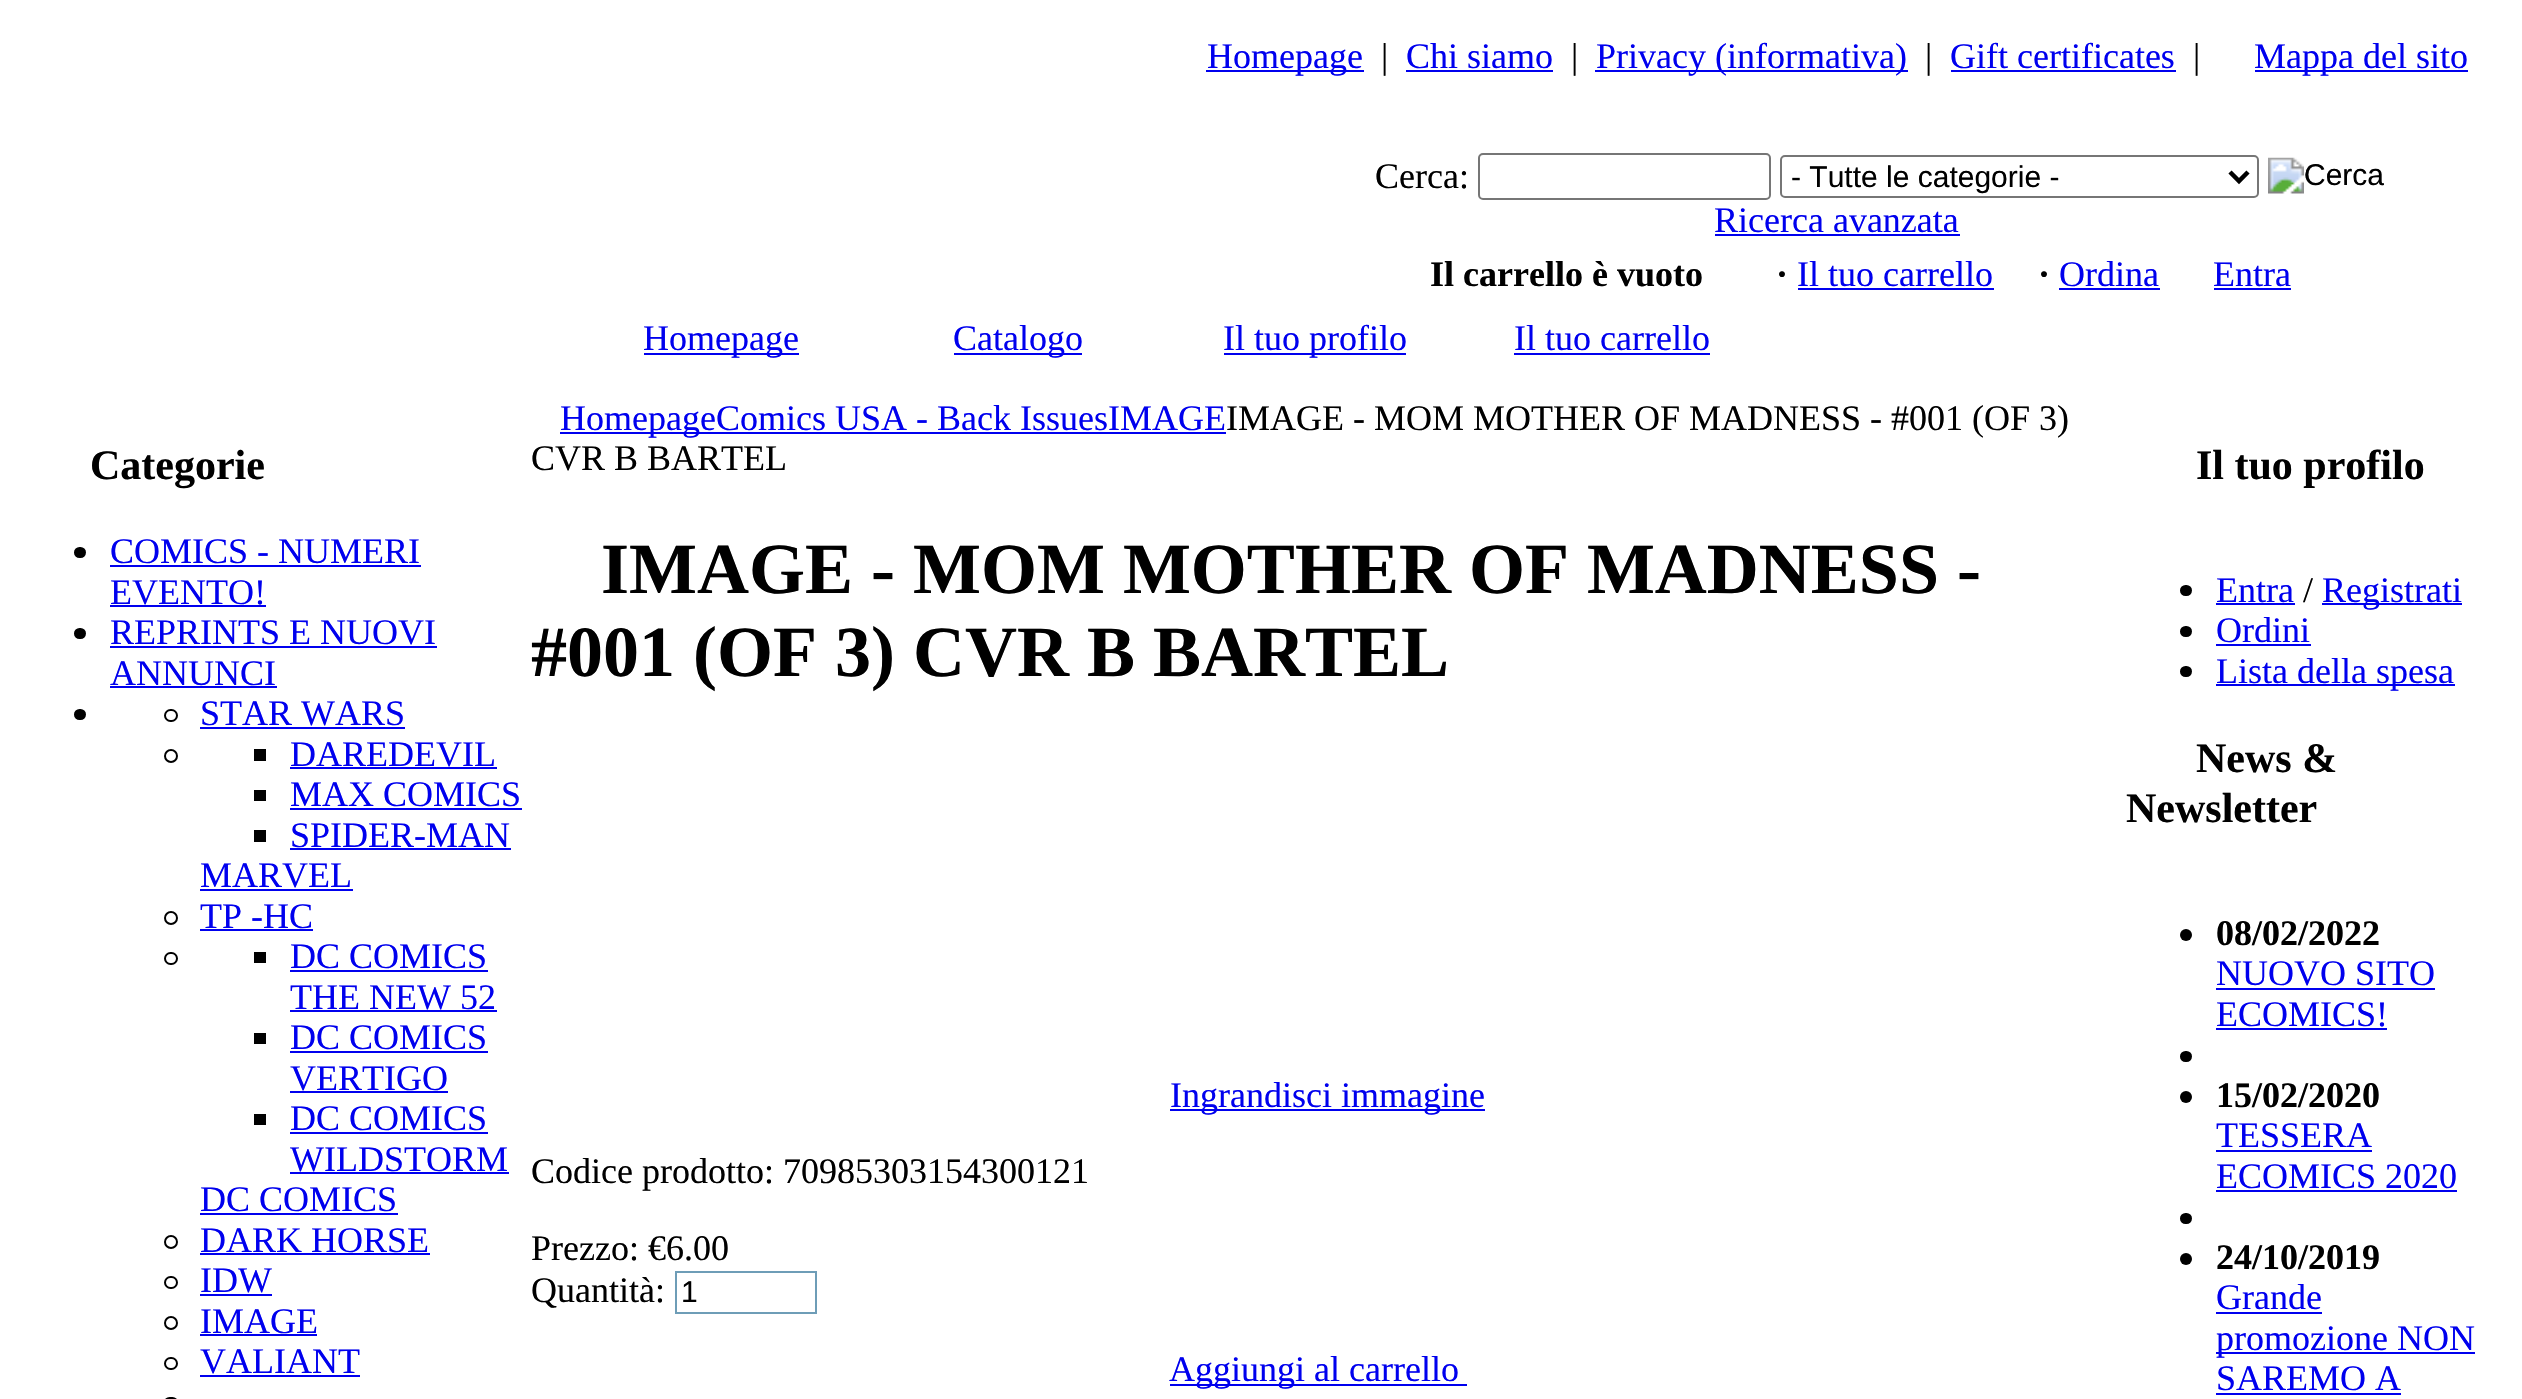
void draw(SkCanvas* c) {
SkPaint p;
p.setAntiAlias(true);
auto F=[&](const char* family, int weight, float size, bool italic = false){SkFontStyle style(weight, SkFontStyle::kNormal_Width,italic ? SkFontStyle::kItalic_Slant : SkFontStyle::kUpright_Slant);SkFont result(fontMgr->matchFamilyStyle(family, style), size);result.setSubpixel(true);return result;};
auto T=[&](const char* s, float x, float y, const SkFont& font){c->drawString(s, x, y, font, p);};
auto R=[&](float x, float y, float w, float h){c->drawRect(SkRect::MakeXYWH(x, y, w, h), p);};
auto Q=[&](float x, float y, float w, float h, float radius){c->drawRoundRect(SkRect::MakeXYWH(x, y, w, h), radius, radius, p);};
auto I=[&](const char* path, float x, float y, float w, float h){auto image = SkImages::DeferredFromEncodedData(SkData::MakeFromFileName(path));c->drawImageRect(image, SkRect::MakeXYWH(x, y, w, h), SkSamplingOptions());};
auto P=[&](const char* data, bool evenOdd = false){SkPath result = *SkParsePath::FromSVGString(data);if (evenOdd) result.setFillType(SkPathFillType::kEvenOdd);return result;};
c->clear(0xffffffff);
p.setColor(0xff0000ee);
R(1206,70,158,2);
auto f1 = F("Liberation Serif",400,36);
T("Homepage",1207,68,f1);
p.setColor(0xff000000);
T("|",1381,68,f1);
p.setColor(0xff0000ee);
T("Chi siamo",1406,68,f1);
R(1406,70,147,2);
p.setColor(0xff000000);
T("|",1571,68,f1);
p.setColor(0xff0000ee);
R(1595,70,313,2);
T("Privacy (informativa)",1596,68,f1);
p.setColor(0xff000000);
T("|",1925,68,f1);
p.setColor(0xff0000ee);
T("Gift certificates",1950,68,f1);
R(1951,70,225,2);
p.setColor(0xff000000);
T("|",2193,68,f1);
p.setColor(0xff0000ee);
R(2255,70,213,2);
T("Mappa del sito",2254,68,f1);
p.setColor(0xff000000);
T("Cerca:",1375,188,f1);
p.setStroke(true);
p.setStrokeWidth(2);
p.setColor(0xff767676);
c->drawRoundRect(SkRect::MakeXYWH(1479,154,291,45),4,4,p);
c->drawRoundRect(SkRect::MakeXYWH(1781,156,477,41),4,4,p);
p.setStrokeWidth(4.5);
p.setColor(0xff000000);
c->drawPath(P("M2230 172l9 9l9-9"),p);
auto f2 = F("Liberation Sans",400,30);
p.setStroke(false);
T("- Tutte le categorie -",1791,187,f2);
I("1.png",2268,157,39,37);
T("Cerca",2304,185,f2);
p.setColor(0xff0000ee);
T("Ricerca avanzata",1714,232,f1);
R(1715,234,245,2);
auto f3 = F("Liberation Serif",700,36);
p.setColor(0xff000000);
T("Il carrello è vuoto",1430,286,f3);
T("·",1776,286,f3);
p.setColor(0xff0000ee);
T("Il tuo carrello",1797,286,f1);
R(1798,288,196,2);
p.setColor(0xff000000);
T("·",2038,286,f3);
p.setColor(0xff0000ee);
T("Ordina",2059,286,f1);
R(2059,288,101,2);
T("Entra",2213,286,f1);
R(2214,288,77,2);
R(644,353,155,2);
T("Homepage",643,350,f1);
R(954,353,128,2);
T("Catalogo",953,350,f1);
R(1224,353,182,2);
T("Il tuo profilo",1223,350,f1);
T("Il tuo carrello",1514,350,f1);
R(1514,353,196,2);
auto f4 = F("Liberation Serif",700,42);
p.setColor(0xff000000);
T("Categorie",90,479,f4);
Q(74,547,12,11,5.5);
p.setColor(0xff0000ee);
T("COMICS - NUMERI",110,563,f1);
R(110,565,311,2);
T("EVENTO!",110,604,f1);
R(110,605,156,2);
p.setColor(0xff000000);
Q(74,628,12,11,5.5);
p.setColor(0xff0000ee);
T("REPRINTS E NUOVI",110,644,f1);
R(110,646,327,2);
T("ANNUNCI",110,685,f1);
R(110,686,167,2);
p.setColor(0xff000000);
Q(74,709,12,11,5.5);
p.setStroke(true);
p.setStrokeWidth(2);
c->drawRoundRect(SkRect::MakeXYWH(165,710,12,11),5.5,5.5,p);
p.setStroke(false);
p.setColor(0xff0000ee);
T("STAR WARS",200,725,f1);
R(200,727,205,2);
p.setStroke(true);
p.setColor(0xff000000);
c->drawCircle(171,756,6,p);
p.setStroke(false);
R(254,749,12,12);
p.setColor(0xff0000ee);
T("DAREDEVIL",290,766,f1);
R(290,767,207,2);
p.setColor(0xff000000);
R(254,790,12,11);
p.setColor(0xff0000ee);
T("MAX COMICS",290,806,f1);
R(290,808,232,2);
p.setColor(0xff000000);
R(254,830,12,12);
p.setColor(0xff0000ee);
T("SPIDER-MAN",290,847,f1);
R(290,848,221,2);
T("MARVEL",200,887,f1);
R(200,889,153,2);
p.setStroke(true);
p.setColor(0xff000000);
c->drawCircle(171,918,6,p);
p.setStroke(false);
p.setColor(0xff0000ee);
T("TP -HC",200,928,f1);
R(200,929,113,2);
p.setStroke(true);
p.setColor(0xff000000);
c->drawRoundRect(SkRect::MakeXYWH(165,953,12,11),5.5,5.5,p);
p.setStroke(false);
R(254,952,12,11);
p.setColor(0xff0000ee);
T("DC COMICS",290,968,f1);
R(290,970,198,2);
T("THE NEW 52",290,1009,f1);
R(290,1010,207,2);
p.setColor(0xff000000);
R(254,1033,12,11);
p.setColor(0xff0000ee);
T("DC COMICS",290,1049,f1);
R(290,1051,198,2);
T("VERTIGO",290,1090,f1);
R(290,1091,158,2);
p.setColor(0xff000000);
R(254,1114,12,11);
p.setColor(0xff0000ee);
T("DC COMICS",290,1130,f1);
R(290,1132,198,2);
T("WILDSTORM",290,1171,f1);
R(290,1172,219,2);
T("DC COMICS",200,1211,f1);
R(200,1213,198,2);
p.setStroke(true);
p.setColor(0xff000000);
c->drawCircle(171,1242,6,p);
p.setStroke(false);
p.setColor(0xff0000ee);
T("DARK HORSE",200,1252,f1);
R(200,1253,230,2);
p.setStroke(true);
p.setColor(0xff000000);
c->drawRoundRect(SkRect::MakeXYWH(165,1277,12,11),5.5,5.5,p);
p.setStroke(false);
p.setColor(0xff0000ee);
T("IDW",200,1292,f1);
R(200,1294,72,2);
p.setStroke(true);
p.setColor(0xff000000);
c->drawCircle(171,1323,6,p);
p.setStroke(false);
p.setColor(0xff0000ee);
T("IMAGE",200,1333,f1);
R(200,1334,117,2);
p.setStroke(true);
p.setColor(0xff000000);
c->drawRoundRect(SkRect::MakeXYWH(165,1358,12,11),5.5,5.5,p);
p.setStroke(false);
p.setColor(0xff0000ee);
T("VALIANT",200,1373,f1);
R(200,1375,160,2);
p.setStroke(true);
p.setColor(0xff000000);
c->drawRoundRect(SkRect::MakeXYWH(165,1398,12,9),6,6,p);
p.setStroke(false);
p.setColor(0xff0000ee);
R(560,432,666,2);
T("HomepageComics USA - Back IssuesIMAGE",560,430,f1);
p.setColor(0xff000000);
T("IMAGE - MOM MOTHER OF MADNESS - #001 (OF 3)",1226,430,f1);
T("CVR B BARTEL",531,470,f1);
auto f5 = F("Liberation Serif",700,72);
T("IMAGE - MOM MOTHER OF MADNESS -",601,593,f5);
T("#001 (OF 3) CVR B BARTEL",531,676,f5);
p.setColor(0xff0000ee);
R(1170,1109,315,2);
T("Ingrandisci immagine",1170,1107,f1);
p.setColor(0xff000000);
T("Codice prodotto: 70985303154300121",531,1183,f1);
T("Prezzo: €6.00",531,1260,f1);
T("Quantità:",531,1302,f1);
p.setStroke(true);
p.setColor(0xff6e9db7);
c->drawRect(SkRect::MakeXYWH(676,1272,140,41),p);
p.setStroke(false);
p.setColor(0xff000000);
T("1",681,1302,f2);
p.setColor(0xff0000ee);
R(1170,1384,297,2);
T("Aggiungi al carrello",1169,1381,f1);
p.setColor(0xff000000);
T("Il tuo profilo",2196,479,f4);
Q(2180,585,12,11,5.5);
p.setColor(0xff0000ee);
T("Entra",2216,602,f1);
R(2216,603,79,2);
p.setColor(0xff000000);
T("/",2303,602,f1);
p.setColor(0xff0000ee);
R(2322,603,140,2);
T("Registrati",2322,602,f1);
p.setColor(0xff000000);
Q(2180,626,12,11,5.5);
p.setColor(0xff0000ee);
T("Ordini",2216,642,f1);
R(2216,644,95,2);
p.setColor(0xff000000);
Q(2180,666,12,11,5.5);
p.setColor(0xff0000ee);
R(2216,684,239,2);
T("Lista della spesa",2216,683,f1);
p.setColor(0xff000000);
T("News &",2196,772,f4);
T("Newsletter",2126,822,f4);
c->drawCircle(2186,935,6,p);
T("08/02/2022",2216,945,f3);
p.setColor(0xff0000ee);
T("NUOVO SITO",2216,985,f1);
R(2216,988,219,2);
T("ECOMICS!",2216,1026,f1);
R(2216,1028,171,2);
p.setColor(0xff000000);
Q(2180,1051,12,11,5.5);
c->drawCircle(2186,1097,6,p);
T("15/02/2020",2216,1107,f3);
p.setColor(0xff0000ee);
T("TESSERA",2216,1147,f1);
R(2216,1150,156,2);
T("ECOMICS 2020",2216,1188,f1);
R(2216,1190,241,2);
p.setColor(0xff000000);
Q(2180,1213,12,11,5.5);
c->drawCircle(2186,1259,6,p);
T("24/10/2019",2216,1269,f3);
p.setColor(0xff0000ee);
T("Grande",2216,1309,f1);
R(2216,1312,106,2);
R(2216,1352,259,2);
T("promozione NON",2216,1350,f1);
T("SAREMO A",2216,1390,f1);
R(2216,1393,185,2);
}
